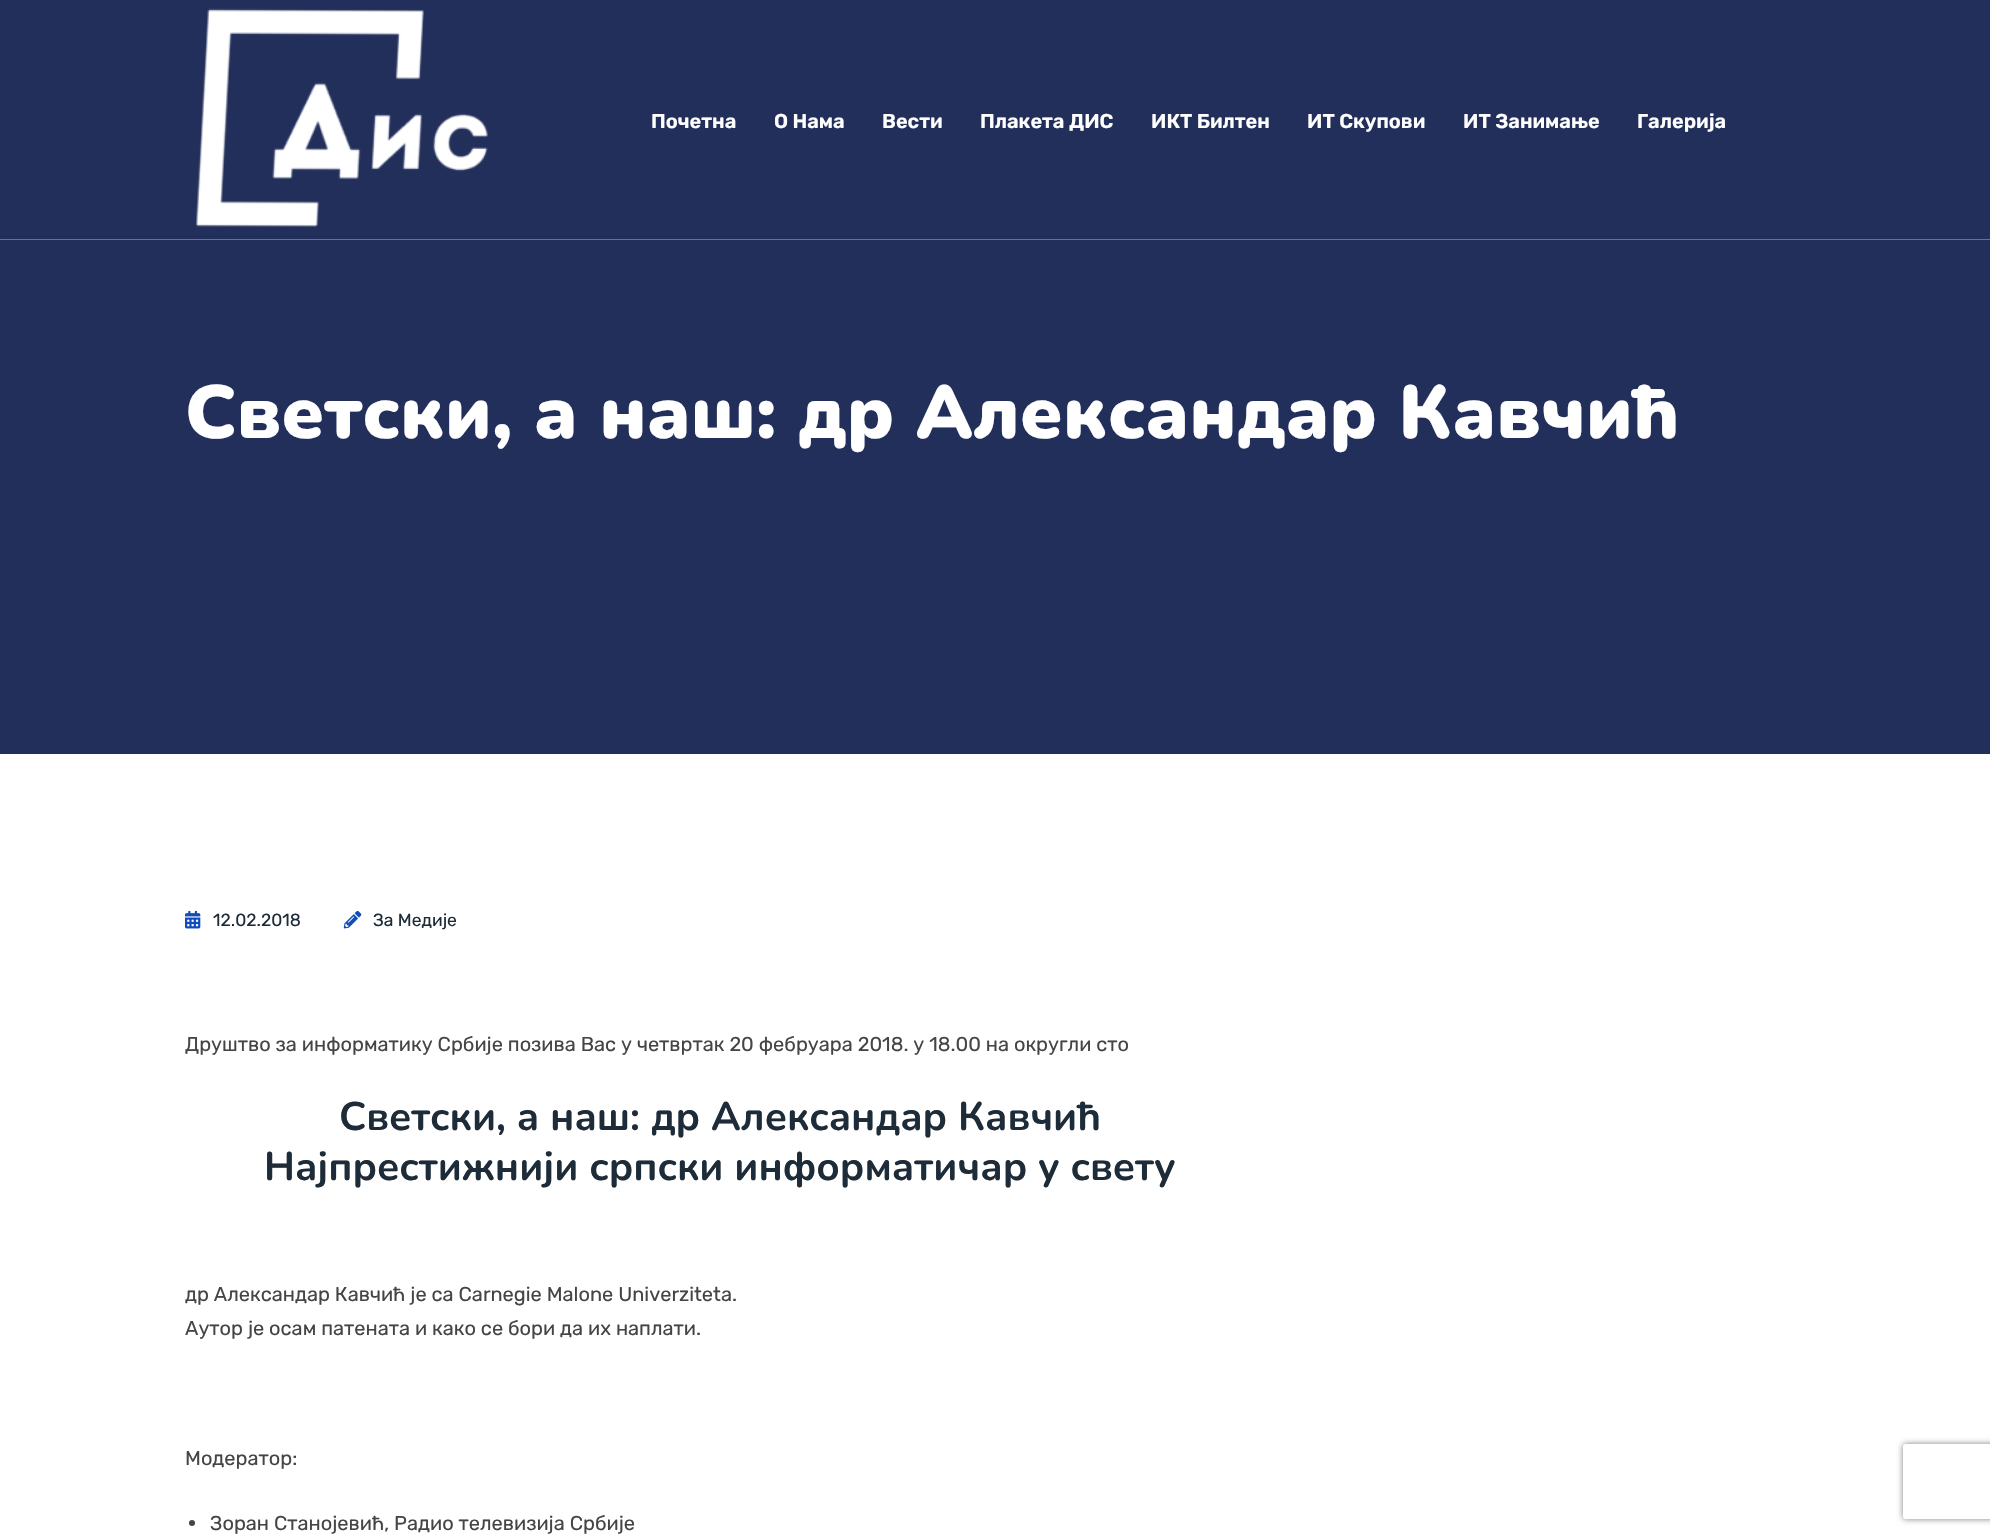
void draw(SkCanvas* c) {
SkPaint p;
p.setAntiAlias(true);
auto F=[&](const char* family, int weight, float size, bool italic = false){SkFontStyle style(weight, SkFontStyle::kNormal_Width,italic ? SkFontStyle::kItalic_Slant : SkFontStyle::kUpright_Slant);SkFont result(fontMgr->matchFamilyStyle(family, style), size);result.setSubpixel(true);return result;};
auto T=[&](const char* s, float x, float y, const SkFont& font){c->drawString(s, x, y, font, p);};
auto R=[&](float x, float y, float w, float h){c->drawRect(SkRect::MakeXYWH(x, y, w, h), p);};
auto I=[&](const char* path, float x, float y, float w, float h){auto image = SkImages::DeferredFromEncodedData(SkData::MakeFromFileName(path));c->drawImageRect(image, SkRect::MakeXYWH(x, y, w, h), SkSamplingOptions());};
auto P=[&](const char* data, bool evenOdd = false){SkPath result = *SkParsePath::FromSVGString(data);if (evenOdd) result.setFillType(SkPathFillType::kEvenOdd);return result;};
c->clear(0xffffffff);
p.setColor(0xff222f5a);
R(0,0,1990,754);
p.setColor(0xff69728f);
R(0,239,1990,1);
I("1.png",196,8,292,219);
auto f1 = F("Rubik",600,20);
p.setColor(0xffffffff);
T("Почетна",651,128,f1);
T("О Нама",774,128,f1);
T("Вести",882,128,f1);
T("Плакета ДИС",980,128,f1);
T("ИКТ Билтен",1151,128,f1);
T("ИТ Скупови",1307,128,f1);
T("ИТ Занимање",1463,128,f1);
T("Галерија",1637,128,f1);
auto f2 = F("Nunito",900,75);
T("Светски, а наш: др Александар Кавчић",185,438,f2);
I("2.png",185,910,16,19);
auto f3 = F("Rubik",400,17.5);
p.setColor(0xff1d2c38);
T("12.02.2018",213,926,f3);
I("3.png",343,911,19,18);
T("За Медије",373,926,f3);
auto f4 = F("Rubik",400,20);
p.setColor(0xff454545);
T("Друштво за информатику Србије позива Вас у четвртак 20 фебруара 2018. у 18.00 на округли сто",185,1051,f4);
auto f5 = F("Nunito",700,40);
p.setColor(0xff1d2c38);
T("Светски, а наш: др Александар Кавчић",339,1130,f5);
T("Најпрестижнији српски информатичар у свету",264,1180,f5);
p.setColor(0xff454545);
T("др Александар Кавчић je сa Carnegie Malone Univerziteta.",185,1301,f4);
T("Aутор је осам патената и како се бори да их наплати.",185,1335,f4);
T("Модератор:",185,1465,f4);
c->drawCircle(192,1523,3,p);
T("Зоран Станојевић, Радио телевизија Србије",210,1530,f4);
c->save();
c->clipPath(P("M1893 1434h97v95h-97zm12.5 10h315c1.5 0 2.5 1 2.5 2.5v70c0 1.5-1 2.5-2.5 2.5h-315c-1.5 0-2.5-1-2.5-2.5v-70c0-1.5 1-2.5 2.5-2.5z",true),true);
p.setColor(0xff808080);
p.setMaskFilter(SkMaskFilter::MakeBlur(kNormal_SkBlurStyle, 3));
c->drawRoundRect(SkRect::MakeXYWH(1903,1444,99,75),2.5,2.5,p);
p.setMaskFilter(nullptr);
c->restore();
}
